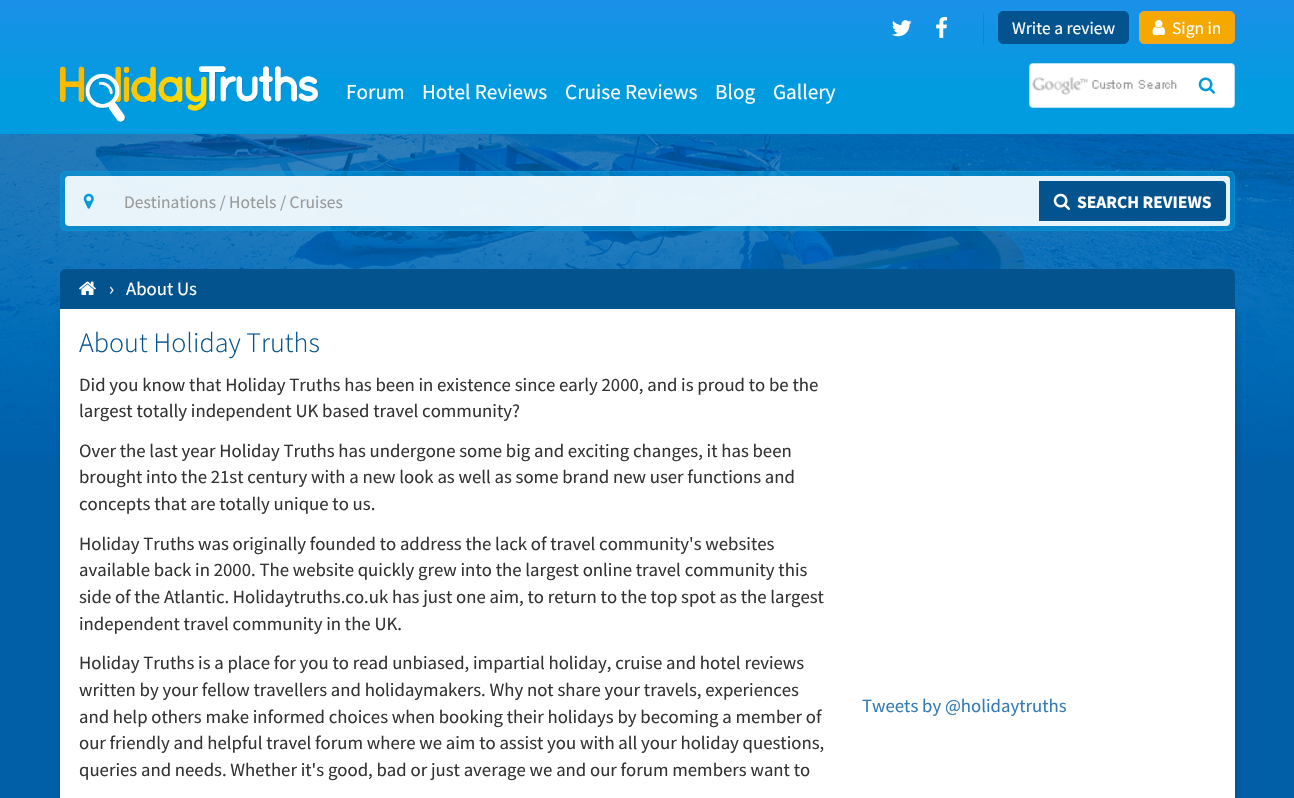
void draw(SkCanvas* c) {
SkPaint p;
p.setAntiAlias(true);
auto F=[&](const char* family, int weight, float size, bool italic = false){SkFontStyle style(weight, SkFontStyle::kNormal_Width,italic ? SkFontStyle::kItalic_Slant : SkFontStyle::kUpright_Slant);SkFont result(fontMgr->matchFamilyStyle(family, style), size);result.setSubpixel(true);return result;};
auto T=[&](const char* s, float x, float y, const SkFont& font){c->drawString(s, x, y, font, p);};
auto R=[&](float x, float y, float w, float h){c->drawRect(SkRect::MakeXYWH(x, y, w, h), p);};
auto Q=[&](float x, float y, float w, float h, float radius){c->drawRoundRect(SkRect::MakeXYWH(x, y, w, h), radius, radius, p);};
auto I=[&](const char* path, float x, float y, float w, float h){auto image = SkImages::DeferredFromEncodedData(SkData::MakeFromFileName(path));c->drawImageRect(image, SkRect::MakeXYWH(x, y, w, h), SkSamplingOptions());};
auto P=[&](const char* data, bool evenOdd = false){SkPath result = *SkParsePath::FromSVGString(data);if (evenOdd) result.setFillType(SkPathFillType::kEvenOdd);return result;};
c->clear(0xff015fa7);
{
const SkColor colors[] = {0xff1c90e8,0xff009cdf};
const float stops[] = {0,.7};
const SkPoint ends[] = {{648,0}, {648,134}};
p.setShader(SkGradientShader::MakeLinear(ends, colors, stops, 2, SkTileMode::kClamp));
p.setAlpha(255);
}
R(0,0,1294,134);
{
const SkColor colors[] = {0xff1982d1,0xff008cc9};
const float stops[] = {0,.7};
const SkPoint ends[] = {{648,0}, {648,134}};
p.setShader(SkGradientShader::MakeLinear(ends, colors, stops, 2, SkTileMode::kClamp));
p.setAlpha(255);
}
R(983,13,1,32);
I("1.png",892,20,20,17);
I("2.png",936,17,12,21);
p.setShader(nullptr);
p.setColor(0xff03538e);
c->drawRoundRect(SkRect::MakeXYWH(998.5,11.5,130,32),4.5,4.5,p);
p.setStroke(true);
p.setStrokeWidth(1);
c->drawRoundRect(SkRect::MakeXYWH(998.5,11.5,130,32),4.5,4.5,p);
auto f1 = F("Source Sans Pro",400,17.5);
p.setStroke(false);
p.setColor(0xffffffff);
T("Write a review",1012,34,f1);
p.setColor(0xfff5a900);
c->drawRoundRect(SkRect::MakeXYWH(1139.5,11.5,95,32),4.5,4.5,p);
p.setStroke(true);
p.setColor(0xffeea236);
c->drawRoundRect(SkRect::MakeXYWH(1139.5,11.5,95,32),4.5,4.5,p);
I("3.png",1152,20,13,15);
p.setStroke(false);
p.setColor(0xffffffff);
T("Sign in",1172,34,f1);
I("4.png",60,66,259,57);
auto f2 = F("Source Sans Pro",400,21.25);
T("Forum",346,99,f2);
T("Hotel Reviews",422,99,f2);
T("Cruise Reviews",565,99,f2);
T("Blog",715,99,f2);
T("Gallery",773,99,f2);
c->drawRoundRect(SkRect::MakeXYWH(1029.5,63.5,205,44),3.5,3.5,p);
p.setStroke(true);
p.setColor(0xffb5dff4);
c->drawRoundRect(SkRect::MakeXYWH(1029.5,63.5,205,44),3.5,3.5,p);
I("5.png",1032,77,145,18);
I("6.png",1198,77,17,17);
I("7.png",0,134,1294,324);
p.setStroke(false);
p.setColor(0x80039bdb);
Q(60,171,1175,60,6);
p.setStroke(true);
c->drawRoundRect(SkRect::MakeXYWH(60.5,171.5,1174,59),5.5,5.5,p);
p.setStroke(false);
p.setColor(0xe6ffffff);
Q(65,176,1165,50,4);
I("8.png",83,193,11,16);
p.setColor(0xff999999);
T("Destinations / Hotels / Cruises",124,208,f1);
p.setColor(0xff03538e);
c->drawPath(P("M1039 181h183c2 0 4 2 4 4v32c0 2-2 4-4 4h-183z"),p);
I("9.png",1053,193,17,17);
auto f3 = F("Source Sans Pro",700,17.5);
p.setColor(0xffffffff);
T("SEARCH REVIEWS",1077,208,f3);
p.setColor(0x1a000000);
p.setMaskFilter(SkMaskFilter::MakeBlur(kNormal_SkBlurStyle, 2));
c->drawRoundRect(SkRect::MakeXYWH(59,308,1180,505),9,9,p);
p.setMaskFilter(nullptr);
p.setColor(0xff03538e);
c->drawPath(P("M66 269h1163c3.5 0 6 2.5 6 6v34h-1175v-34c0-3.5 2.5-6 6-6z"),p);
I("10.png",79,281,17,14);
auto f4 = F("Source Sans Pro",400,18.75);
p.setColor(0xffffffff);
T("›",109,295,f4);
T("About Us",126,295,f4);
R(60,309,1175,489);
auto f5 = F("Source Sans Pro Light",300,28.1);
p.setColor(0xff03538e);
T("About Holiday Truths",79,352,f5);
p.setColor(0xff333333);
T("Did you know that Holiday Truths has been in existence since early 2000, and is proud to be the",79,391,f4);
T("largest totally independent UK based travel community?",79,417,f4);
T("Over the last year Holiday Truths has undergone some big and exciting changes, it has been",79,457,f4);
T("brought into the 21st century with a new look as well as some brand new user functions and",79,483,f4);
T("concepts that are totally unique to us.",79,510,f4);
T("Holiday Truths was originally founded to address the lack of travel community's websites",79,550,f4);
T("available back in 2000. The website quickly grew into the largest online travel community this",79,576,f4);
T("side of the Atlantic. Holidaytruths.co.uk has just one aim, to return to the top spot as the largest",79,603,f4);
T("independent travel community in the UK.",79,630,f4);
T("Holiday Truths is a place for you to read unbiased, impartial holiday, cruise and hotel reviews",79,669,f4);
T("written by your fellow travellers and holidaymakers. Why not share your travels, experiences",79,696,f4);
T("and help others make informed choices when booking their holidays by becoming a member of",79,723,f4);
T("our friendly and helpful travel forum where we aim to assist you with all your holiday questions,",79,749,f4);
T("queries and needs. Whether it's good, bad or just average we and our forum members want to",79,776,f4);
p.setColor(0xff337ab7);
T("Tweets by @holidaytruths",862,712,f4);
}
